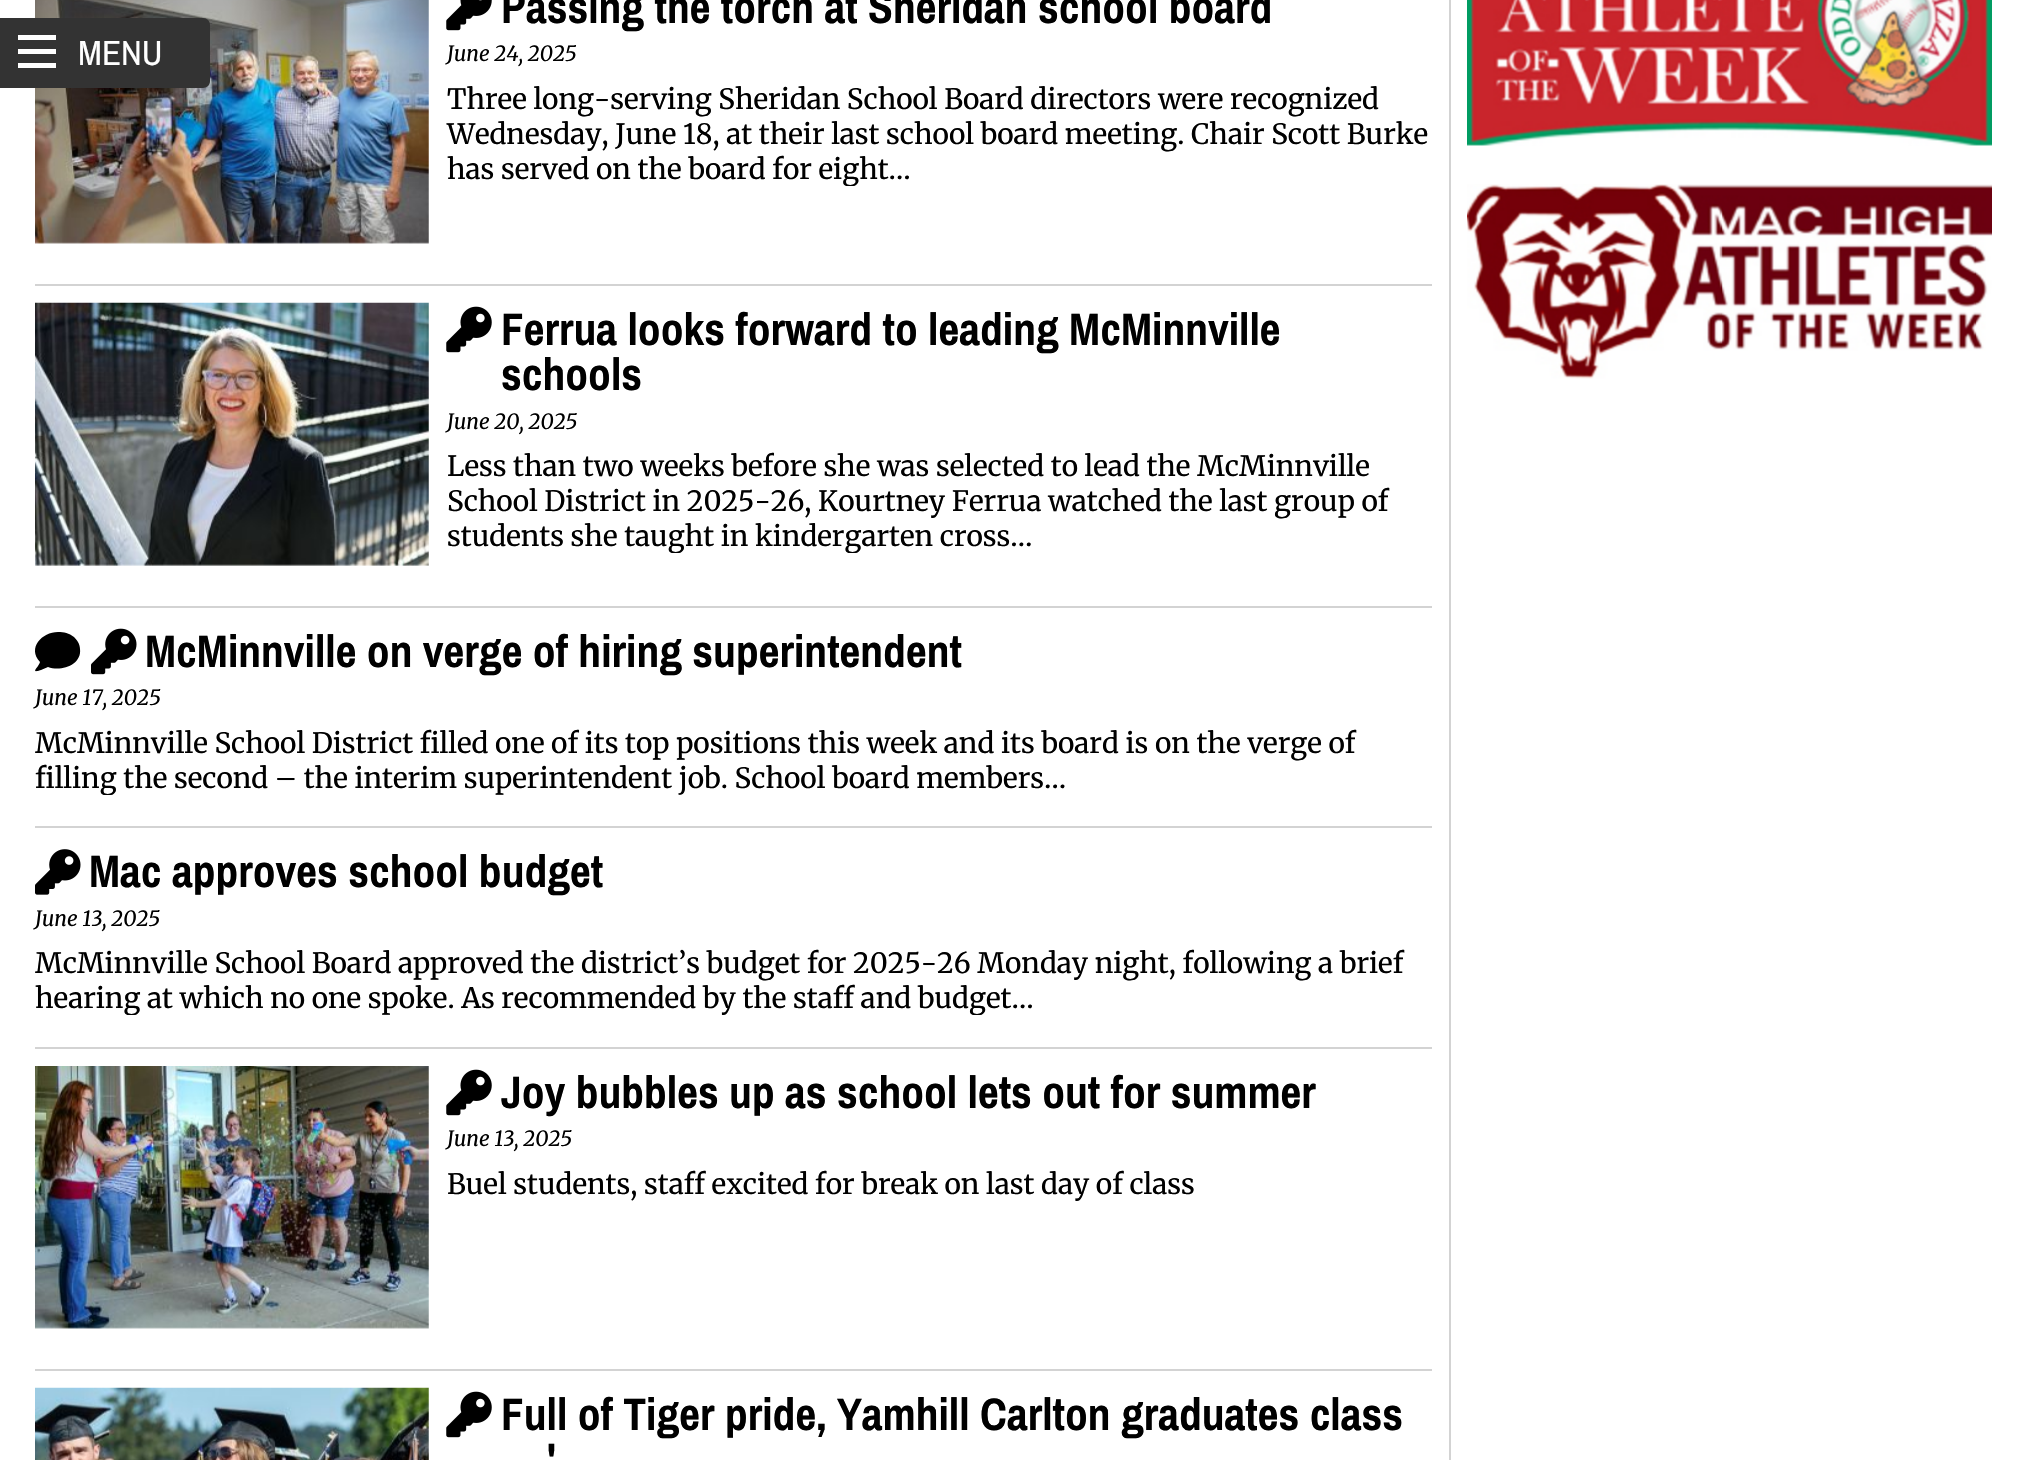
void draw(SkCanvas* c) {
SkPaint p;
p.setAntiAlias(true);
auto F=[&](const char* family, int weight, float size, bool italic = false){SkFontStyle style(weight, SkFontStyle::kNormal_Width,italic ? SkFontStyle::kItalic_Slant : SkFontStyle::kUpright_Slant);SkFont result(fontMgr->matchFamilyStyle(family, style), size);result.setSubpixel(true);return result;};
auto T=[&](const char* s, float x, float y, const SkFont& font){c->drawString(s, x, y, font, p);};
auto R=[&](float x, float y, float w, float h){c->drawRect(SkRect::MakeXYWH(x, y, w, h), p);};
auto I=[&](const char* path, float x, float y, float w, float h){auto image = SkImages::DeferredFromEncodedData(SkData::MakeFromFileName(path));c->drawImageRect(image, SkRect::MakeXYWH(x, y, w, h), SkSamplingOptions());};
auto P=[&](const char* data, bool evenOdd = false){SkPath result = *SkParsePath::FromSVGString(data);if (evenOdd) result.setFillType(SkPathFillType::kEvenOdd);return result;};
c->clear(0xffffffff);
p.setColor(0xffd3d3d3);
R(1449,0,2,1460);
R(35,284,1397,2);
I("1.png",35,0,394,244);
I("2.png",446,0,46,31);
auto f1 = F("Archivo Narrow",700,45.5);
p.setColor(0xff000000);
T("Passing the torch at Sheridan school board",501,23,f1);
auto f2 = F("Merriweather",300,21,true);
T("June 24, 2025",447,61,f2);
auto f3 = F("Merriweather",400,28);
T("Three long-serving Sheridan School Board directors were recognized",447,109,f3);
T("Wednesday, June 18, at their last school board meeting. Chair Scott Burke",447,144,f3);
c->save();
c->clipRect(SkRect::MakeXYWH(446,81,986,105));
T("has served on the board for eight…",447,179,f3);
c->restore();
p.setColor(0xffd3d3d3);
R(35,606,1397,2);
I("3.png",35,302,394,264);
I("4.png",446,306,46,47);
p.setColor(0xff000000);
T("Ferrua looks forward to leading McMinnville",501,345,f1);
T("schools",501,390,f1);
T("June 20, 2025",447,429,f2);
T("Less than two weeks before she was selected to lead the McMinnville",447,476,f3);
T("School District in 2025-26, Kourtney Ferrua watched the last group of",447,511,f3);
c->save();
c->clipRect(SkRect::MakeXYWH(446,448,986,105));
T("students she taught in kindergarten cross…",447,546,f3);
c->restore();
p.setColor(0xffd3d3d3);
R(35,826,1397,2);
p.setColor(0xff000000);
c->drawPath(P("M58 632c-16 0-31 16-18 30c-1 5-11 12 1 8l7-3c13 5 34-2 32-18c0-5-3-9-6-12c-5-4-10-5-16-5z"),p);
I("5.png",91,628,46,47);
T("McMinnville on verge of hiring superintendent",145,667,f1);
T("June 17, 2025",35,705,f2);
T("McMinnville School District filled one of its top positions this week and its board is on the verge of",35,753,f3);
c->save();
c->clipRect(SkRect::MakeXYWH(35,725,1397,70));
T("filling the second – the interim superintendent job. School board members…",35,788,f3);
c->restore();
p.setColor(0xffd3d3d3);
R(35,1047,1397,2);
I("6.png",35,849,46,46);
p.setColor(0xff000000);
T("Mac approves school budget",89,887,f1);
T("June 13, 2025",35,926,f2);
T("McMinnville School Board approved the district’s budget for 2025-26 Monday night, following a brief",35,973,f3);
c->save();
c->clipRect(SkRect::MakeXYWH(35,945,1397,70));
T("hearing at which no one spoke. As recommended by the staff and budget…",35,1008,f3);
c->restore();
p.setColor(0xffd3d3d3);
R(35,1369,1397,2);
I("7.png",35,1066,394,263);
I("4.png",446,1069,46,47);
p.setColor(0xff000000);
T("Joy bubbles up as school lets out for summer",501,1108,f1);
T("June 13, 2025",447,1146,f2);
T("Buel students, staff excited for break on last day of class",447,1194,f3);
I("8.png",35,1387,394,73);
I("4.png",446,1391,46,47);
T("Full of Tiger pride, Yamhill Carlton graduates class",501,1430,f1);
T("'",547,1475,f1);
I("9.png",1467,0,525,146);
I("10.png",1467,184,525,195);
p.setColor(0xff333333);
c->drawPath(P("M0 18h203c4 0 7 3 7 7v56c0 4-3 7-7 7h-203z"),p);
p.setColor(0xffffffff);
R(18,35,38,5);
R(18,49,38,5);
R(18,63,38,5);
auto f4 = F("Archivo Narrow",400,35);
T("MENU",78,65,f4);
}
